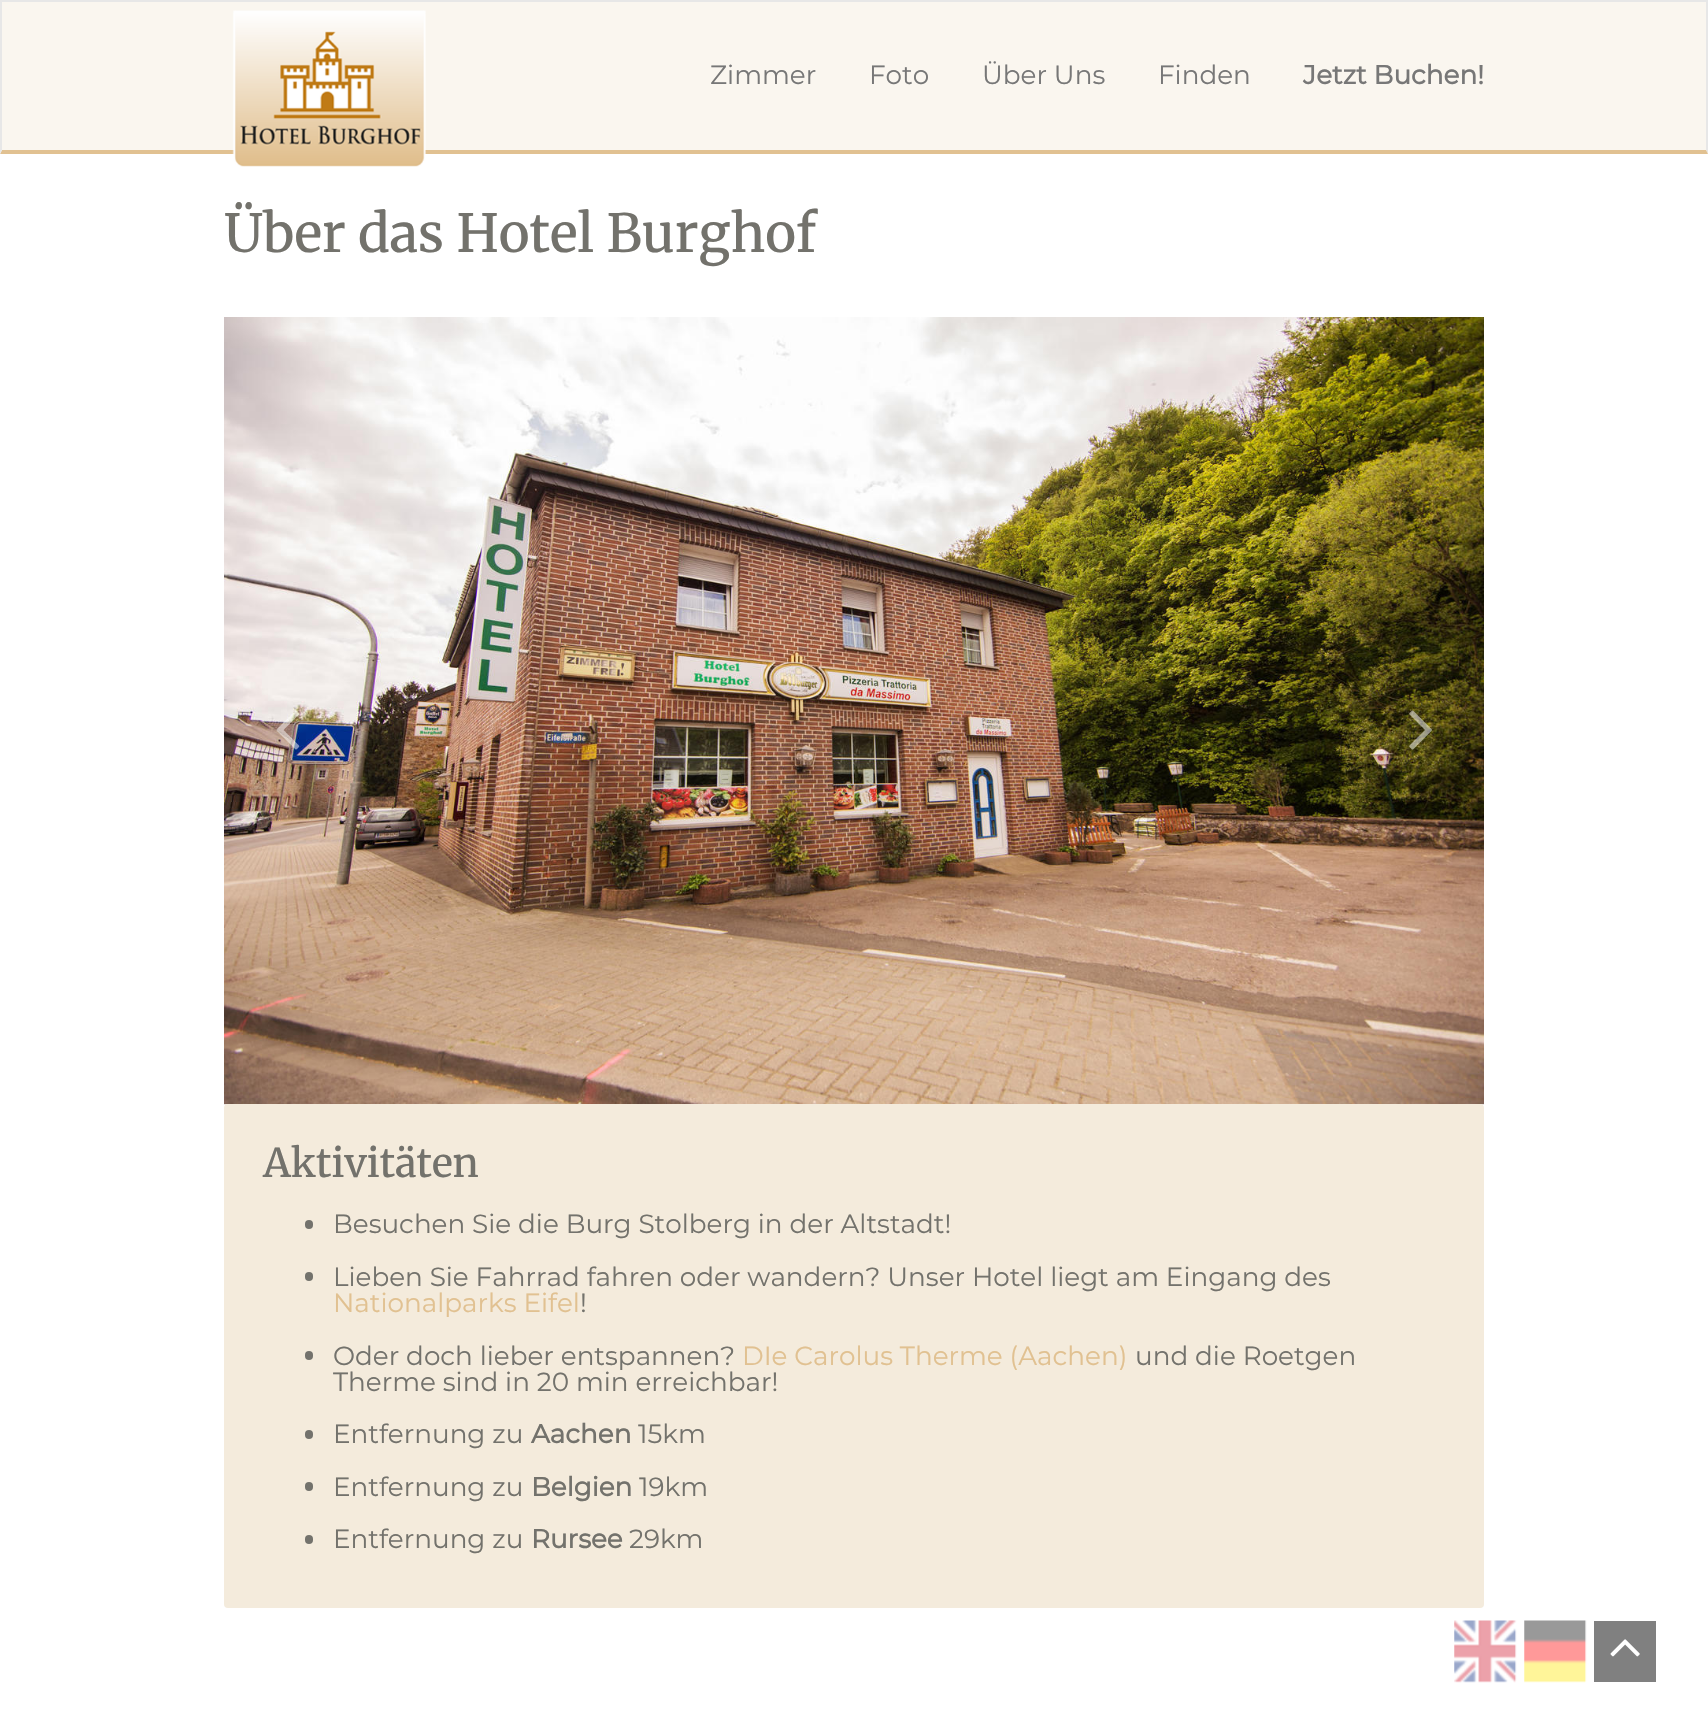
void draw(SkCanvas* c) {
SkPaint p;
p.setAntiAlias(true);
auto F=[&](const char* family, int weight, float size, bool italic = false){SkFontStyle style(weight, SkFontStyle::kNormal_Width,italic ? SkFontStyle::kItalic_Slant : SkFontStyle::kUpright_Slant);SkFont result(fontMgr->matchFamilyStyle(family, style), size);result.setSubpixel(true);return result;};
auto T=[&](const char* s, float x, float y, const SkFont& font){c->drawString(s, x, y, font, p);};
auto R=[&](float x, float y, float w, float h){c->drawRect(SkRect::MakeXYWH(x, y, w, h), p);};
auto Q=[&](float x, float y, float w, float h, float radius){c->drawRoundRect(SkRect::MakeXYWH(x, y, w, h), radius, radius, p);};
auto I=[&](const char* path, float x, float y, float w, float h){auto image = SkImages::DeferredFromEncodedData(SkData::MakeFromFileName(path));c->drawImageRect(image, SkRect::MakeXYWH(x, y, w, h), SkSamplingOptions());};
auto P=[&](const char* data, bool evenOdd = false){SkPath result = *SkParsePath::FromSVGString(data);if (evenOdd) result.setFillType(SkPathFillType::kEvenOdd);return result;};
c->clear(0xffffffff);
p.setColor(0xfffaf6ef);
R(2,2,1704,148);
p.setColor(0xffe7e7e7);
R(0,0,1708,2);
c->drawPath(P("M1708 0v154l-2-4v-148z"),p);
p.setColor(0xffe1c191);
c->drawPath(P("M1708 154h-1708l2-4h1704z"),p);
p.setColor(0xffe7e7e7);
c->drawPath(P("M0 154v-154l2 2v148z"),p);
I("1.png",232,10,194,157);
auto f1 = F("Montserrat",100,26.25);
p.setColor(0xff777777);
T("Zimmer",710,84,f1);
T("Foto",869,84,f1);
T("Über Uns",982,84,f1);
T("Finden",1158,84,f1);
auto f2 = F("Montserrat",700,26.25);
T("Jetzt Buchen!",1303,84,f2);
auto f3 = F("Merriweather",500,52.5);
p.setColor(0xff73726c);
T("Über das Hotel Burghof",224,252,f3);
I("2.png",224,317,1260,788);
I("3.png",276,710,24,40);
I("4.png",1409,710,23,40);
p.setColor(0xfff4ebdc);
Q(224,1104,1260,504,4);
auto f4 = F("Merriweather",500,39.5);
p.setColor(0xff73726c);
T("Aktivitäten",263,1177,f4);
Q(305,1220,8,9,4);
T("Besuchen Sie die Burg Stolberg in der Altstadt!",333,1233,f1);
Q(305,1272,8,9,4);
T("Lieben Sie Fahrrad fahren oder wandern? Unser Hotel liegt am Eingang des",333,1286,f1);
p.setColor(0xffe1c191);
T("Nationalparks Eifel",333,1312,f1);
p.setColor(0xff73726c);
T("!",580,1312,f1);
Q(305,1351,8,9,4);
T("Oder doch lieber entspannen?",333,1365,f1);
p.setColor(0xffe1c191);
T("DIe Carolus Therme (Aachen)",742,1365,f1);
p.setColor(0xff73726c);
T("und die Roetgen",1135,1365,f1);
T("Therme sind in 20 min erreichbar!",333,1391,f1);
Q(305,1430,8,9,4);
T("Entfernung zu",333,1443,f1);
T("Aachen",531,1443,f2);
T("15km",638,1443,f1);
Q(305,1482,8,9,4);
T("Entfernung zu",333,1496,f1);
T("Belgien",531,1496,f2);
T("19km",639,1496,f1);
Q(305,1535,8,9,4);
T("Entfernung zu",333,1548,f1);
T("Rursee",531,1548,f2);
T("29km",629,1548,f1);
I("5.png",1454,1620,63,63);
I("6.png",1524,1620,63,63);
p.setColor(0xff808080);
R(1594,1621,62,61);
I("7.png",1610,1639,30,18);
}
